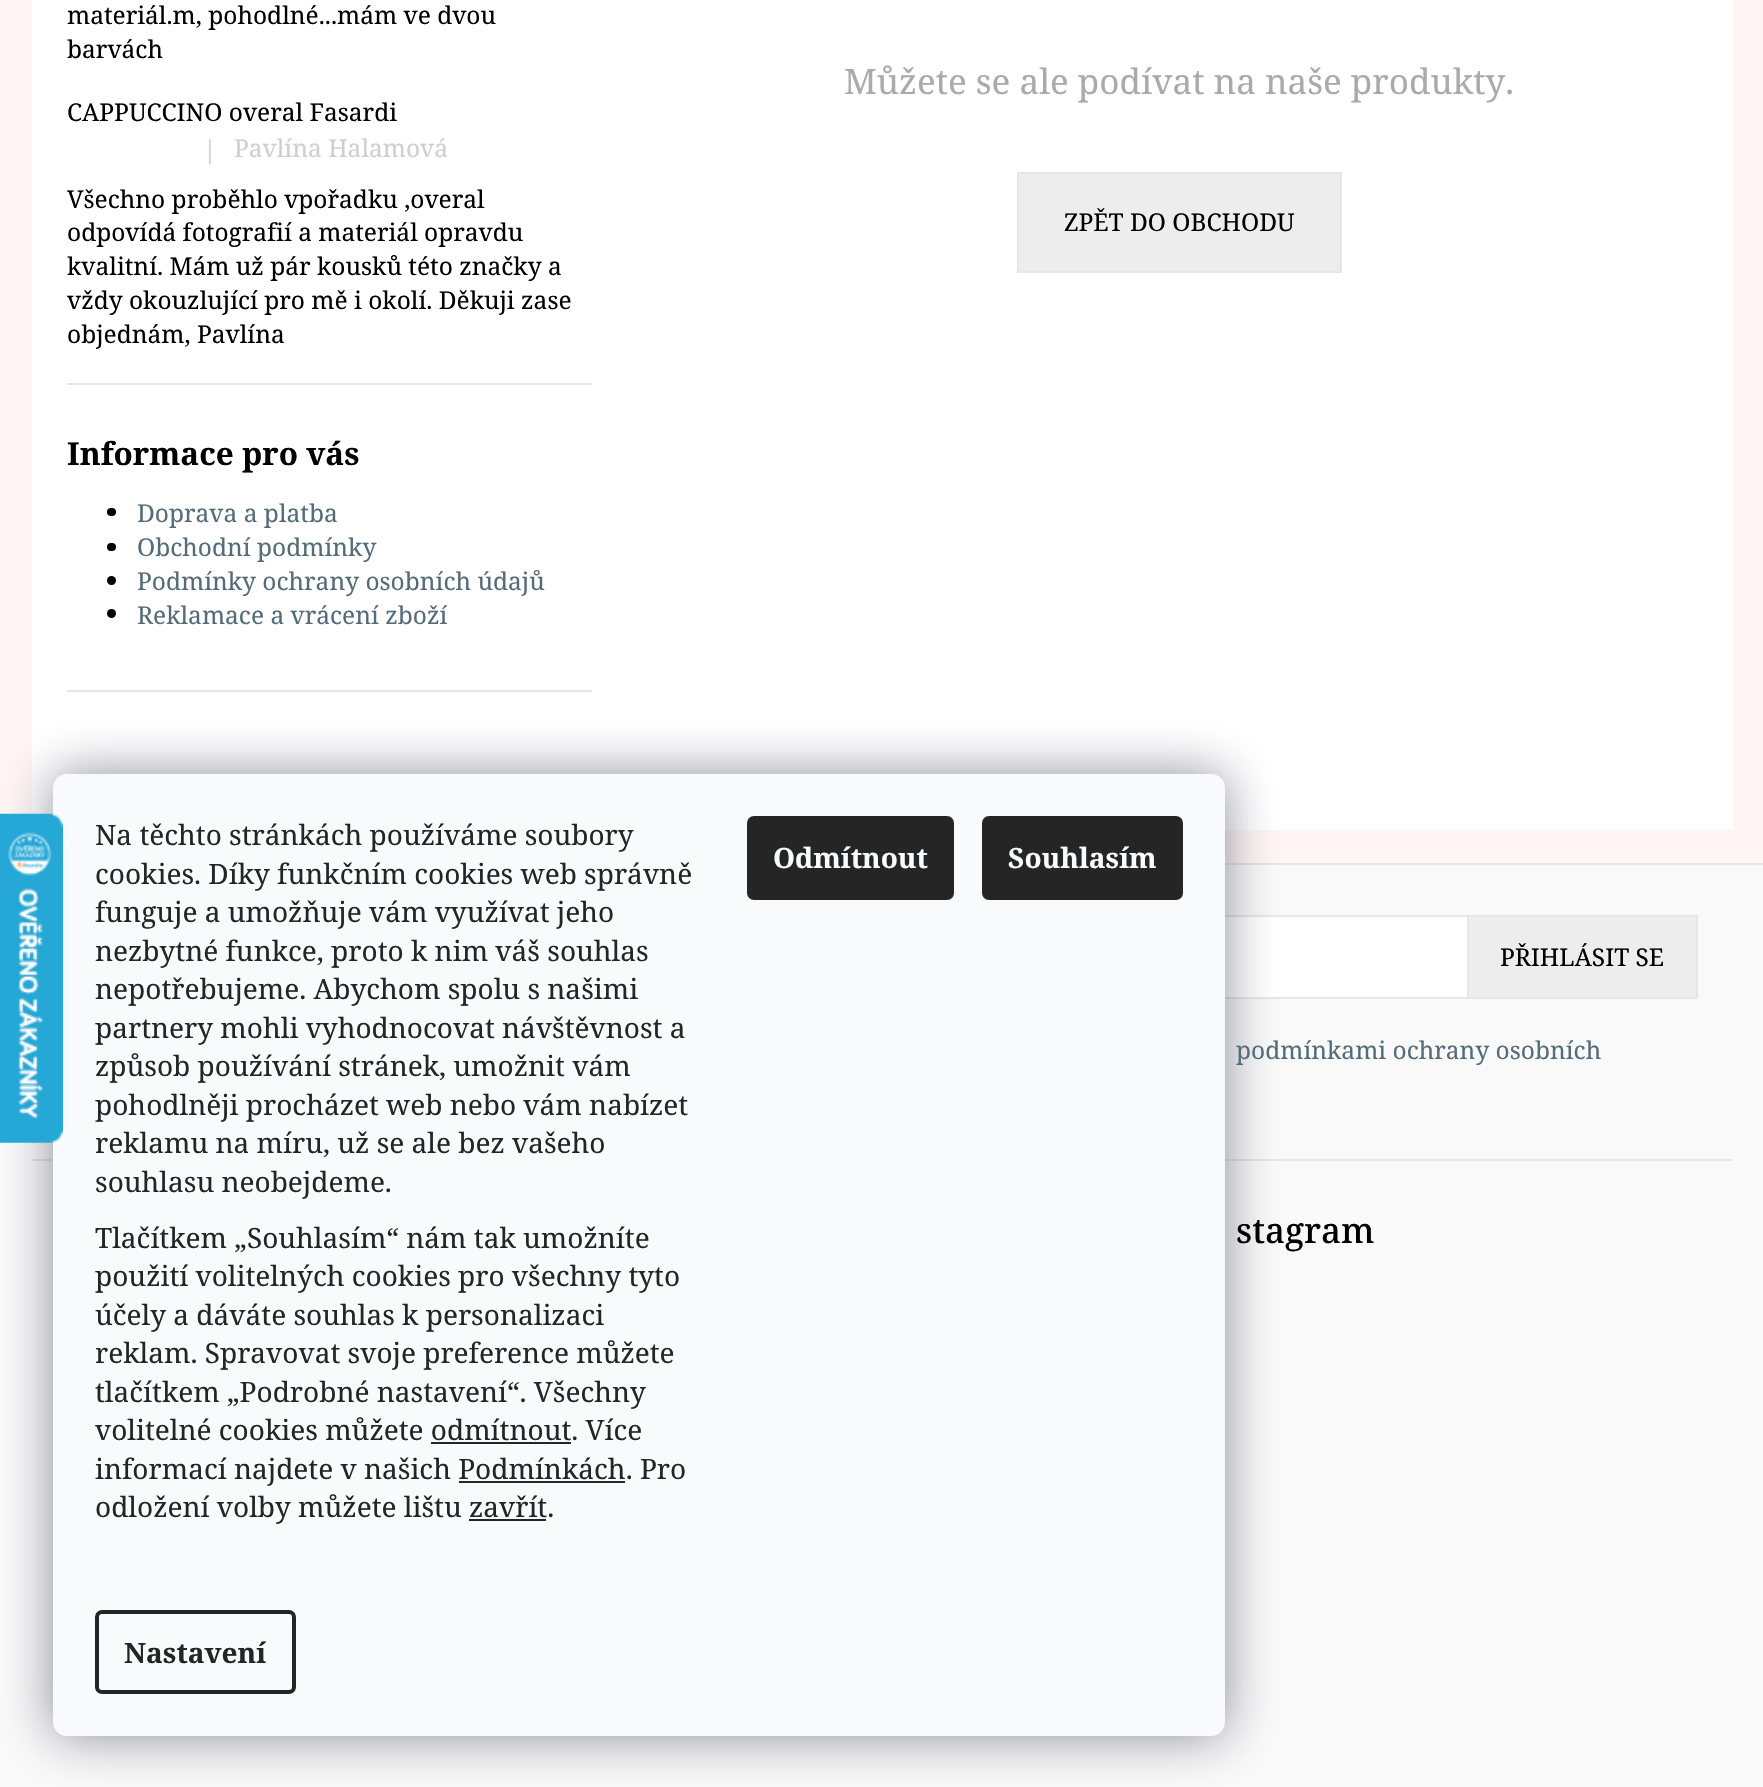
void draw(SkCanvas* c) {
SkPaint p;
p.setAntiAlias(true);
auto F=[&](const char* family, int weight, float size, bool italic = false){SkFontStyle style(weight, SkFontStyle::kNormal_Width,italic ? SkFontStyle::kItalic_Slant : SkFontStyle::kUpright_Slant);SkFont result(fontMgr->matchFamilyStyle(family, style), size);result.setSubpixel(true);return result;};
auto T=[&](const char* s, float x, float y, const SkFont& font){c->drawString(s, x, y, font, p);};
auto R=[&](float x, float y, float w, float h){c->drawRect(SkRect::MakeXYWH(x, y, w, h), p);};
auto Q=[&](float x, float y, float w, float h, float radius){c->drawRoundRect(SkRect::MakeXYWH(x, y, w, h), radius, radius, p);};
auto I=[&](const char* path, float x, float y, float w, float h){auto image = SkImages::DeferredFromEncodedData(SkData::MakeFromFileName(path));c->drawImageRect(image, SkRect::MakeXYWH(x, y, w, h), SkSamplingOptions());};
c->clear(0xfffff5f5);
p.setColor(0xffffffff);
R(32,0,1701,830);
p.setColor(0xfff9f9f9);
R(0,865,1763,922);
p.setColor(0xffe6e6e6);
R(1225,863,538,2);
R(32,1159,1701,2);
p.setColor(0xffffffff);
R(1225,917,242,80);
p.setStroke(true);
p.setStrokeWidth(2);
p.setColor(0xffe6e6e6);
c->drawRect(SkRect::MakeXYWH(883,916,814,82),p);
p.setStroke(false);
p.setColor(0x801b1939);
p.setMaskFilter(SkMaskFilter::MakeBlur(kNormal_SkBlurStyle, 26));
c->drawRoundRect(SkRect::MakeXYWH(53,774,1172,962),14,14,p);
p.setMaskFilter(nullptr);
p.setColor(0xfff8fafb);
Q(53,774,1172,962,14);
I("1.png",0,813,63,330);
auto f1 = F("Noto Serif",400,24.5);
p.setColor(0xff000000);
T("materiál.m, pohodlné...mám ve dvou",67,24,f1);
T("barvách",67,58,f1);
T("CAPPUCCINO overal Fasardi",67,121,f1);
p.setColor(0xffcfcfcf);
T("|",203,158,f1);
T("Pavlína Halamová",234,157,f1);
p.setColor(0xff000000);
T("Všechno proběhlo vpořadku ,overal",67,208,f1);
T("odpovídá fotografií a materiál opravdu",67,241,f1);
T("kvalitní. Mám už pár kousků této značky a",67,275,f1);
T("vždy okouzlující pro mě i okolí. Děkuji zase",67,309,f1);
T("objednám, Pavlína",67,343,f1);
p.setColor(0xffe6e6e6);
R(67,383,525,2);
auto f2 = F("Noto Serif",700,31.5);
p.setColor(0xff000000);
T("Informace pro vás",67,465,f2);
Q(107,508,9,8,4);
p.setColor(0xff546b79);
T("Doprava a platba",137,522,f1);
p.setColor(0xff000000);
Q(107,543,9,8,4);
p.setColor(0xff546b79);
T("Obchodní podmínky",137,556,f1);
p.setColor(0xff000000);
c->drawCircle(111.5,580.5,4.5,p);
p.setColor(0xff546b79);
T("Podmínky ochrany osobních údajů",137,590,f1);
p.setColor(0xff000000);
c->drawCircle(111.5,613.5,4.5,p);
p.setColor(0xff546b79);
T("Reklamace a vrácení zboží",137,624,f1);
p.setColor(0xffe6e6e6);
R(67,690,525,2);
auto f3 = F("Noto Serif",400,35);
p.setColor(0xffaaaaaa);
T("Můžete se ale podívat na naše produkty.",844,94,f3);
p.setColor(0xffededed);
c->drawRect(SkRect::MakeXYWH(1018,173,323,99),p);
p.setStroke(true);
p.setColor(0xffe6e6e6);
c->drawRect(SkRect::MakeXYWH(1018,173,323,99),p);
p.setStroke(false);
p.setColor(0xff000000);
T("ZPĚT DO OBCHODU",1064,231,f1);
p.setColor(0xffededed);
c->drawRect(SkRect::MakeXYWH(1468,916,229,82),p);
p.setStroke(true);
p.setColor(0xffe6e6e6);
c->drawRect(SkRect::MakeXYWH(1468,916,229,82),p);
p.setStroke(false);
p.setColor(0xff000000);
T("PŘIHLÁSIT SE",1500,966,f1);
p.setColor(0xff546b79);
T("podmínkami ochrany osobních",1236,1059,f1);
auto f4 = F("Noto Serif",500,35);
p.setColor(0xff000000);
T("stagram",1236,1243,f4);
auto f5 = F("Noto Serif",400,28);
p.setColor(0xff252525);
T("Na těchto stránkách používáme soubory",95,845,f5);
T("cookies. Díky funkčním cookies web správně",95,884,f5);
T("funguje a umožňuje vám využívat jeho",95,922,f5);
T("nezbytné funkce, proto k nim váš souhlas",95,961,f5);
T("nepotřebujeme. Abychom spolu s našimi",95,999,f5);
T("partnery mohli vyhodnocovat návštěvnost a",95,1038,f5);
T("způsob používání stránek, umožnit vám",95,1076,f5);
T("pohodlněji procházet web nebo vám nabízet",95,1115,f5);
T("reklamu na míru, už se ale bez vašeho",95,1153,f5);
T("souhlasu neobejdeme.",95,1192,f5);
T("Tlačítkem „Souhlasím“ nám tak umožníte",95,1248,f5);
T("použití volitelných cookies pro všechny tyto",95,1286,f5);
T("účely a dáváte souhlas k personalizaci",95,1325,f5);
T("reklam. Spravovat svoje preference můžete",95,1363,f5);
T("tlačítkem „Podrobné nastavení“. Všechny",95,1402,f5);
T("volitelné cookies můžete odmítnout. Více",95,1440,f5);
R(431,1442,140,2);
T("informací najdete v našich Podmínkách. Pro",95,1479,f5);
R(459,1481,166,2);
T("odložení volby můžete lištu zavřít.",95,1517,f5);
R(469,1519,77,2);
p.setStroke(true);
p.setStrokeWidth(4);
c->drawRoundRect(SkRect::MakeXYWH(97,1612,197,80),5,5,p);
auto f6 = F("Noto Serif",700,28);
p.setStroke(false);
T("Nastavení",124,1663,f6);
Q(747,816,207,84,7);
p.setColor(0xfff8fafb);
T("Odmítnout",773,868,f6);
p.setColor(0xff252525);
Q(982,816,201,84,7);
p.setColor(0xfff8fafb);
T("Souhlasím",1008,868,f6);
}
